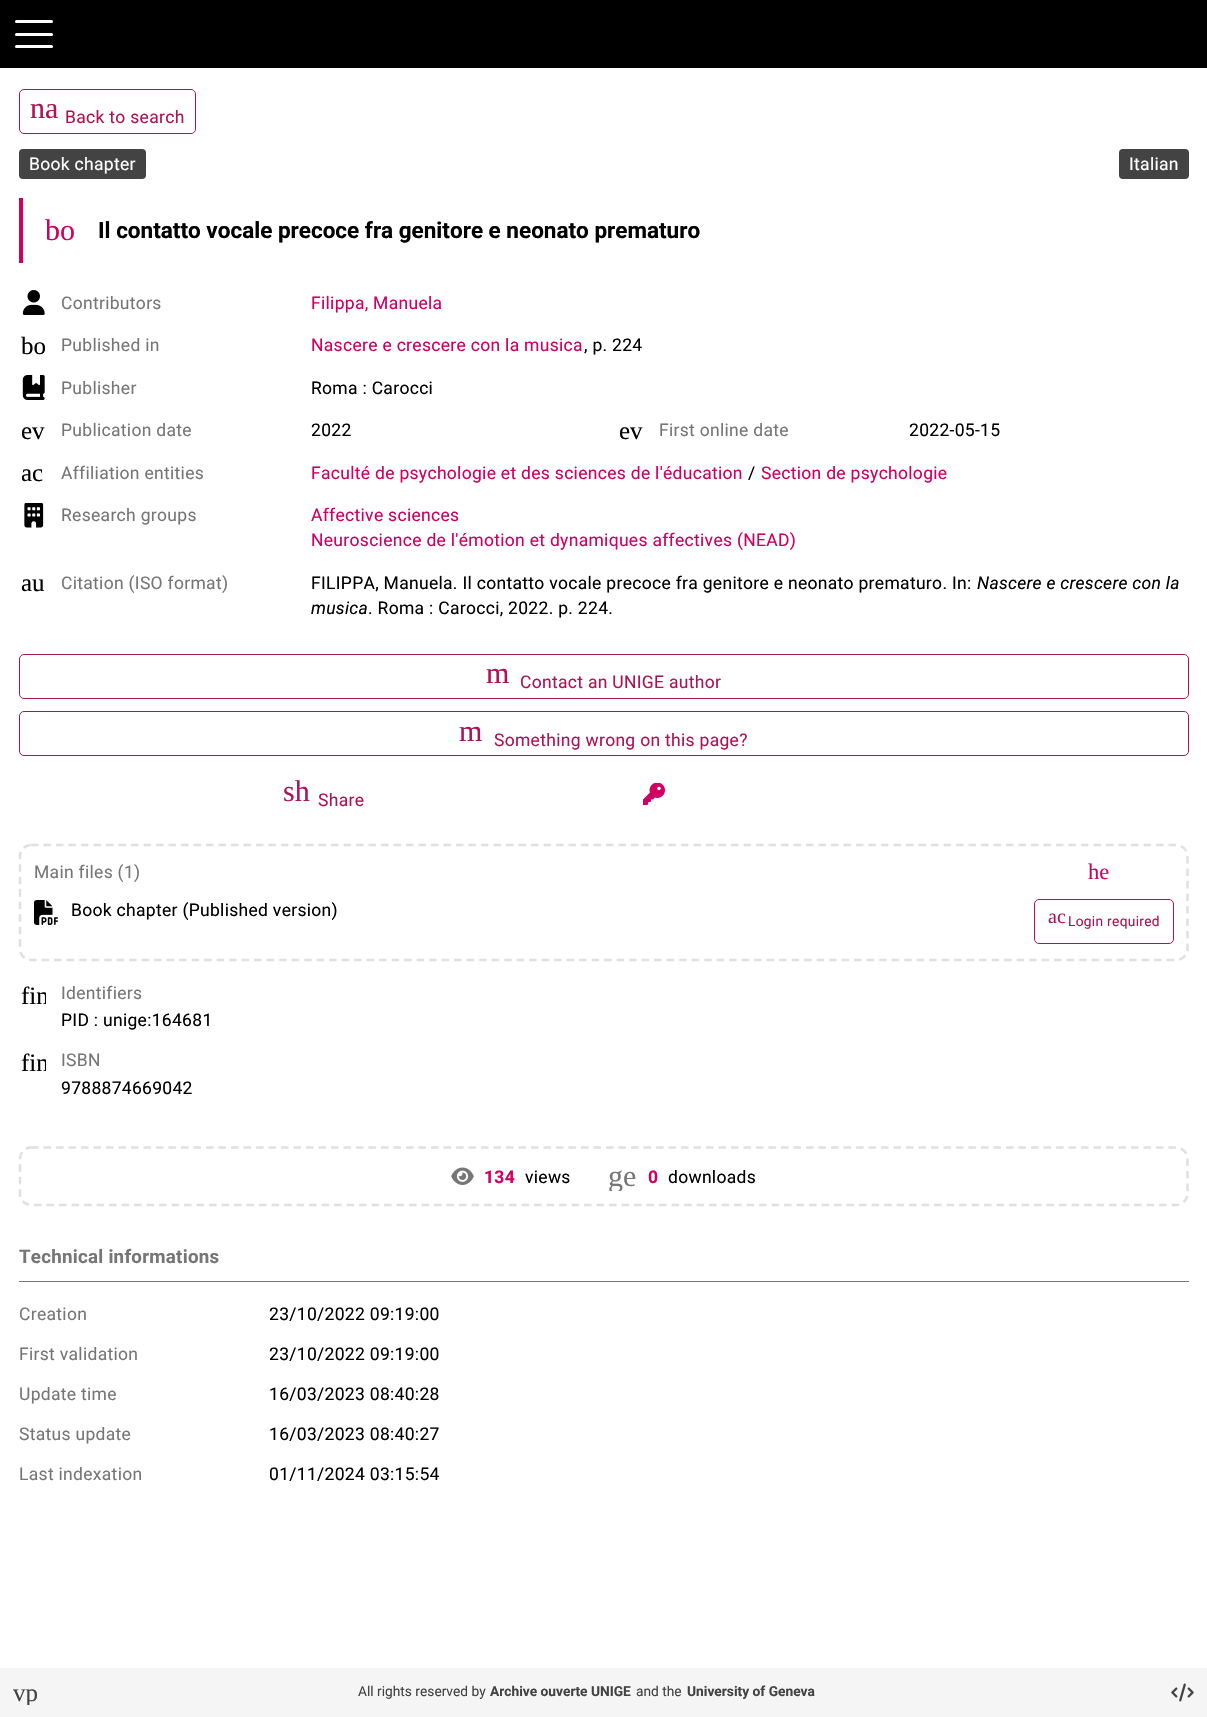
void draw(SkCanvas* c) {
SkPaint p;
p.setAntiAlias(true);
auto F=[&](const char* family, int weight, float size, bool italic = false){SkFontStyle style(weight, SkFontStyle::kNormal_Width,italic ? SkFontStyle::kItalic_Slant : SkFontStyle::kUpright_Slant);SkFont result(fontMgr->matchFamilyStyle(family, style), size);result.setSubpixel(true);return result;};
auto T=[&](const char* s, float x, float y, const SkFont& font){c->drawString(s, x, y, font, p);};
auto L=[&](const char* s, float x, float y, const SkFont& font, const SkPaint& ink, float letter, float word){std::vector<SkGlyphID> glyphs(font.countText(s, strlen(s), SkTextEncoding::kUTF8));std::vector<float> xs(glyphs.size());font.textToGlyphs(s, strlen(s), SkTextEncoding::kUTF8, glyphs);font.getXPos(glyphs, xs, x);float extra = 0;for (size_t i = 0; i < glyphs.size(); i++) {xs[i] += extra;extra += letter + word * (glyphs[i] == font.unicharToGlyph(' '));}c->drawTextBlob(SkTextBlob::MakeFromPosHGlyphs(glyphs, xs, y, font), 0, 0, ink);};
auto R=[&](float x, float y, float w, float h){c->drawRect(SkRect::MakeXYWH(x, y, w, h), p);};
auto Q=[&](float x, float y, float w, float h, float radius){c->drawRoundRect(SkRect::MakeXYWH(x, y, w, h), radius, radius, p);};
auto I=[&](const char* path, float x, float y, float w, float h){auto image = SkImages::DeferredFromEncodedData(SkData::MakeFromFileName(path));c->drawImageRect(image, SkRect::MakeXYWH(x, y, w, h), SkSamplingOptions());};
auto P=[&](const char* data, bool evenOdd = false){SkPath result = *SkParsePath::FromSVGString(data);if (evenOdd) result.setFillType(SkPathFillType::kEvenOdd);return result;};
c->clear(0xffffffff);
p.setColor(0xff000000);
R(0,0,1207,68);
p.setColor(0xffffffff);
Q(15,20,38,3,1.5);
Q(15,33,38,3,1.5);
Q(15,45,38,3,1.5);
p.setStroke(true);
p.setStrokeWidth(1);
p.setColor(0xffad1457);
c->drawRoundRect(SkRect::MakeXYWH(19.5,89.5,176,44),4.5,4.5,p);
auto f1 = F("Liberation Serif",400,30);
p.setStroke(false);
T("na",30,118,f1);
auto f2 = F("Roboto",400,17.5);
L("Back to search",65,123,f2,p,.3,0);
p.setColor(0xff434343);
Q(19,149,127,30,4);
p.setColor(0xffffffff);
L("Book chapter",29,170,f2,p,.3,0);
p.setColor(0xff434343);
Q(1119,149,70,30,4);
p.setColor(0xffffffff);
L("Italian",1129,170,f2,p,.3,0);
p.setColor(0xffcf0063);
R(19,198,4,65);
T("bo",45,240,f1);
auto f3 = F("Roboto",700,22.5);
p.setColor(0xff000000);
T("Il contatto vocale precoce fra genitore e neonato prematuro",98,238,f3);
I("1.png",22,290,23,25);
p.setColor(0xff767676);
L("Contributors",61,309,f2,p,.3,0);
p.setColor(0xffcf0063);
L("Filippa, Manuela",311,309,f2,p,.3,0);
auto f4 = F("Liberation Serif",400,25);
p.setColor(0xff000000);
T("bo",21,354,f4);
p.setColor(0xff767676);
L("Published in",61,351,f2,p,.3,0);
p.setColor(0xffcf0063);
L("Nascere e crescere con la musica",311,351,f2,p,.3,0);
p.setColor(0xff000000);
L(", p. 224",584,351,f2,p,.3,0);
I("2.png",22,375,23,25);
p.setColor(0xff767676);
L("Publisher",61,394,f2,p,.3,0);
p.setColor(0xff000000);
L("Roma : Carocci",311,394,f2,p,.3,0);
T("ev",21,439,f4);
p.setColor(0xff767676);
L("Publication date",61,436,f2,p,.3,0);
p.setColor(0xff000000);
L("2022",311,436,f2,p,.3,0);
T("ev",619,439,f4);
p.setColor(0xff767676);
L("First online date",659,436,f2,p,.3,0);
p.setColor(0xff000000);
L("2022-05-15",909,436,f2,p,.3,0);
T("ac",21,481,f4);
p.setColor(0xff767676);
L("Affiliation entities",61,479,f2,p,.3,0);
p.setColor(0xffcf0063);
L("Faculté de psychologie et des sciences de l'éducation",311,479,f2,p,.3,0);
p.setColor(0xff000000);
L("/",748,479,f2,p,.3,0);
p.setColor(0xffcf0063);
L("Section de psychologie",761,479,f2,p,.3,0);
I("3.png",24,503,20,25);
p.setColor(0xff767676);
L("Research groups",61,521,f2,p,.3,0);
p.setColor(0xffcf0063);
L("Affective sciences",311,521,f2,p,.3,0);
L("Neuroscience de l'émotion et dynamiques affectives (NEAD)",311,546,f2,p,.3,0);
p.setColor(0xff000000);
T("au",21,591,f4);
p.setColor(0xff767676);
L("Citation (ISO format)",61,589,f2,p,.3,0);
p.setColor(0xff000000);
L("FILIPPA, Manuela. Il contatto vocale precoce fra genitore e neonato prematuro. In:",311,589,f2,p,.3,0);
auto f5 = F("Roboto",400,17.5,true);
L("Nascere e crescere con la",977,589,f5,p,.3,0);
L("musica",311,614,f5,p,.3,0);
L(". Roma : Carocci, 2022. p. 224.",368,614,f2,p,.3,0);
p.setStroke(true);
p.setColor(0xffad1457);
c->drawRoundRect(SkRect::MakeXYWH(19.5,654.5,1169,44),4.5,4.5,p);
p.setStroke(false);
T("m",486,683,f1);
L("Contact an UNIGE author",520,688,f2,p,.3,0);
p.setStroke(true);
c->drawRoundRect(SkRect::MakeXYWH(19.5,711.5,1169,44),4.5,4.5,p);
p.setStroke(false);
T("m",459,741,f1);
L("Something wrong on this page?",494,746,f2,p,.3,0);
T("sh",283,801,f1);
L("Share",318,806,f2,p,.3,0);
I("4.png",643,783,22,22);
p.setStroke(true);
p.setStrokeWidth(2.5);
p.setColor(0xffe0e0e0);
p.setPathEffect(SkDashPathEffect::Make({{7.5f,5}}, 0));
c->drawPath(P("M31 845h1145c6.5 0 11.5 5 11.5 11v93c0 6-5 11-11.5 11h-1145c-6 0-11-5-11-11v-93c0-6 5-11 11-11z"),p);
p.setPathEffect(nullptr);
p.setStroke(false);
p.setColor(0xff767676);
L("Main files (1)",34,878,f2,p,.3,0);
auto f6 = F("Liberation Serif",400,22.5);
p.setColor(0xffcf0063);
T("he",1088,879,f6);
I("5.png",34,900,24,25);
p.setColor(0xff000000);
L("Book chapter (Published version)",71,916,f2,p,.3,0);
p.setStroke(true);
p.setStrokeWidth(1);
p.setColor(0xffad1457);
c->drawRoundRect(SkRect::MakeXYWH(1034.5,899.5,139,44),4.5,4.5,p);
auto f7 = F("Liberation Serif",400,20);
p.setStroke(false);
T("ac",1048,923,f7);
auto f8 = F("Roboto",400,13.75);
L("Login required",1068,926,f8,p,.3,0);
c->save();
c->clipRect(SkRect::MakeXYWH(21,983,25,25));
p.setColor(0xff000000);
T("fin",21,1004,f4);
c->restore();
p.setColor(0xff767676);
L("Identifiers",61,999,f2,p,.3,0);
p.setColor(0xff000000);
L("PID : unige:164681",61,1026,f2,p,.3,0);
c->save();
c->clipRect(SkRect::MakeXYWH(21,1050,25,25));
T("fin",21,1071,f4);
c->restore();
p.setColor(0xff767676);
L("ISBN",61,1066,f2,p,.3,0);
p.setColor(0xff000000);
L("9788874669042",61,1094,f2,p,.3,0);
p.setStroke(true);
p.setStrokeWidth(2.5);
p.setColor(0xffe0e0e0);
p.setPathEffect(SkDashPathEffect::Make({{7.5f,5}}, 0));
c->drawPath(P("M31 1147.5h1145c6.5 0 11.5 5 11.5 11.5v35c0 6-5 11-11.5 11h-1145c-6 0-11-5-11-11v-35c0-6.5 5-11.5 11-11.5z"),p);
p.setPathEffect(nullptr);
I("6.png",451,1167,23,18);
auto f9 = F("Roboto",700,17.5);
p.setStroke(false);
p.setColor(0xffcf0063);
L("134",484,1183,f9,p,.3,0);
p.setColor(0xff000000);
L("views",525,1183,f2,p,.3,0);
c->save();
c->clipRect(SkRect::MakeXYWH(608,1161,30,30));
p.setColor(0xff767676);
T("ge",608,1186,f1);
c->restore();
p.setColor(0xffcf0063);
L("0",648,1183,f9,p,.3,0);
p.setColor(0xff000000);
L("downloads",668,1183,f2,p,.3,0);
p.setColor(0xff767676);
R(19,1281,1170,1);
auto f10 = F("Roboto",700,18.75);
L("Technical informations",19,1263,f10,p,.25,0);
L("Creation",19,1320,f2,p,.3,0);
p.setColor(0xff000000);
L("23/10/2022 09:19:00",269,1320,f2,p,.3,0);
p.setColor(0xff767676);
L("First validation",19,1360,f2,p,.3,0);
p.setColor(0xff000000);
L("23/10/2022 09:19:00",269,1360,f2,p,.3,0);
p.setColor(0xff767676);
L("Update time",19,1400,f2,p,.3,0);
p.setColor(0xff000000);
L("16/03/2023 08:40:28",269,1400,f2,p,.3,0);
p.setColor(0xff767676);
L("Status update",19,1440,f2,p,.3,0);
p.setColor(0xff000000);
L("16/03/2023 08:40:27",269,1440,f2,p,.3,0);
p.setColor(0xff767676);
L("Last indexation",19,1480,f2,p,.3,0);
p.setColor(0xff000000);
L("01/11/2024 03:15:54",269,1480,f2,p,.3,0);
p.setColor(0xfff5f5f5);
R(0,1668,1207,49);
c->save();
c->clipRect(SkRect::MakeXYWH(13,1680,25,25));
p.setColor(0xff434343);
T("vp",13,1701,f4);
c->restore();
T("All rights reserved by",358,1696,f8);
auto f11 = F("Roboto",700,13.75);
T("Archive ouverte UNIGE",490,1696,f11);
T("and the",636,1696,f8);
T("University of Geneva",687,1696,f11);
I("7.png",1171,1683,23,19);
}
